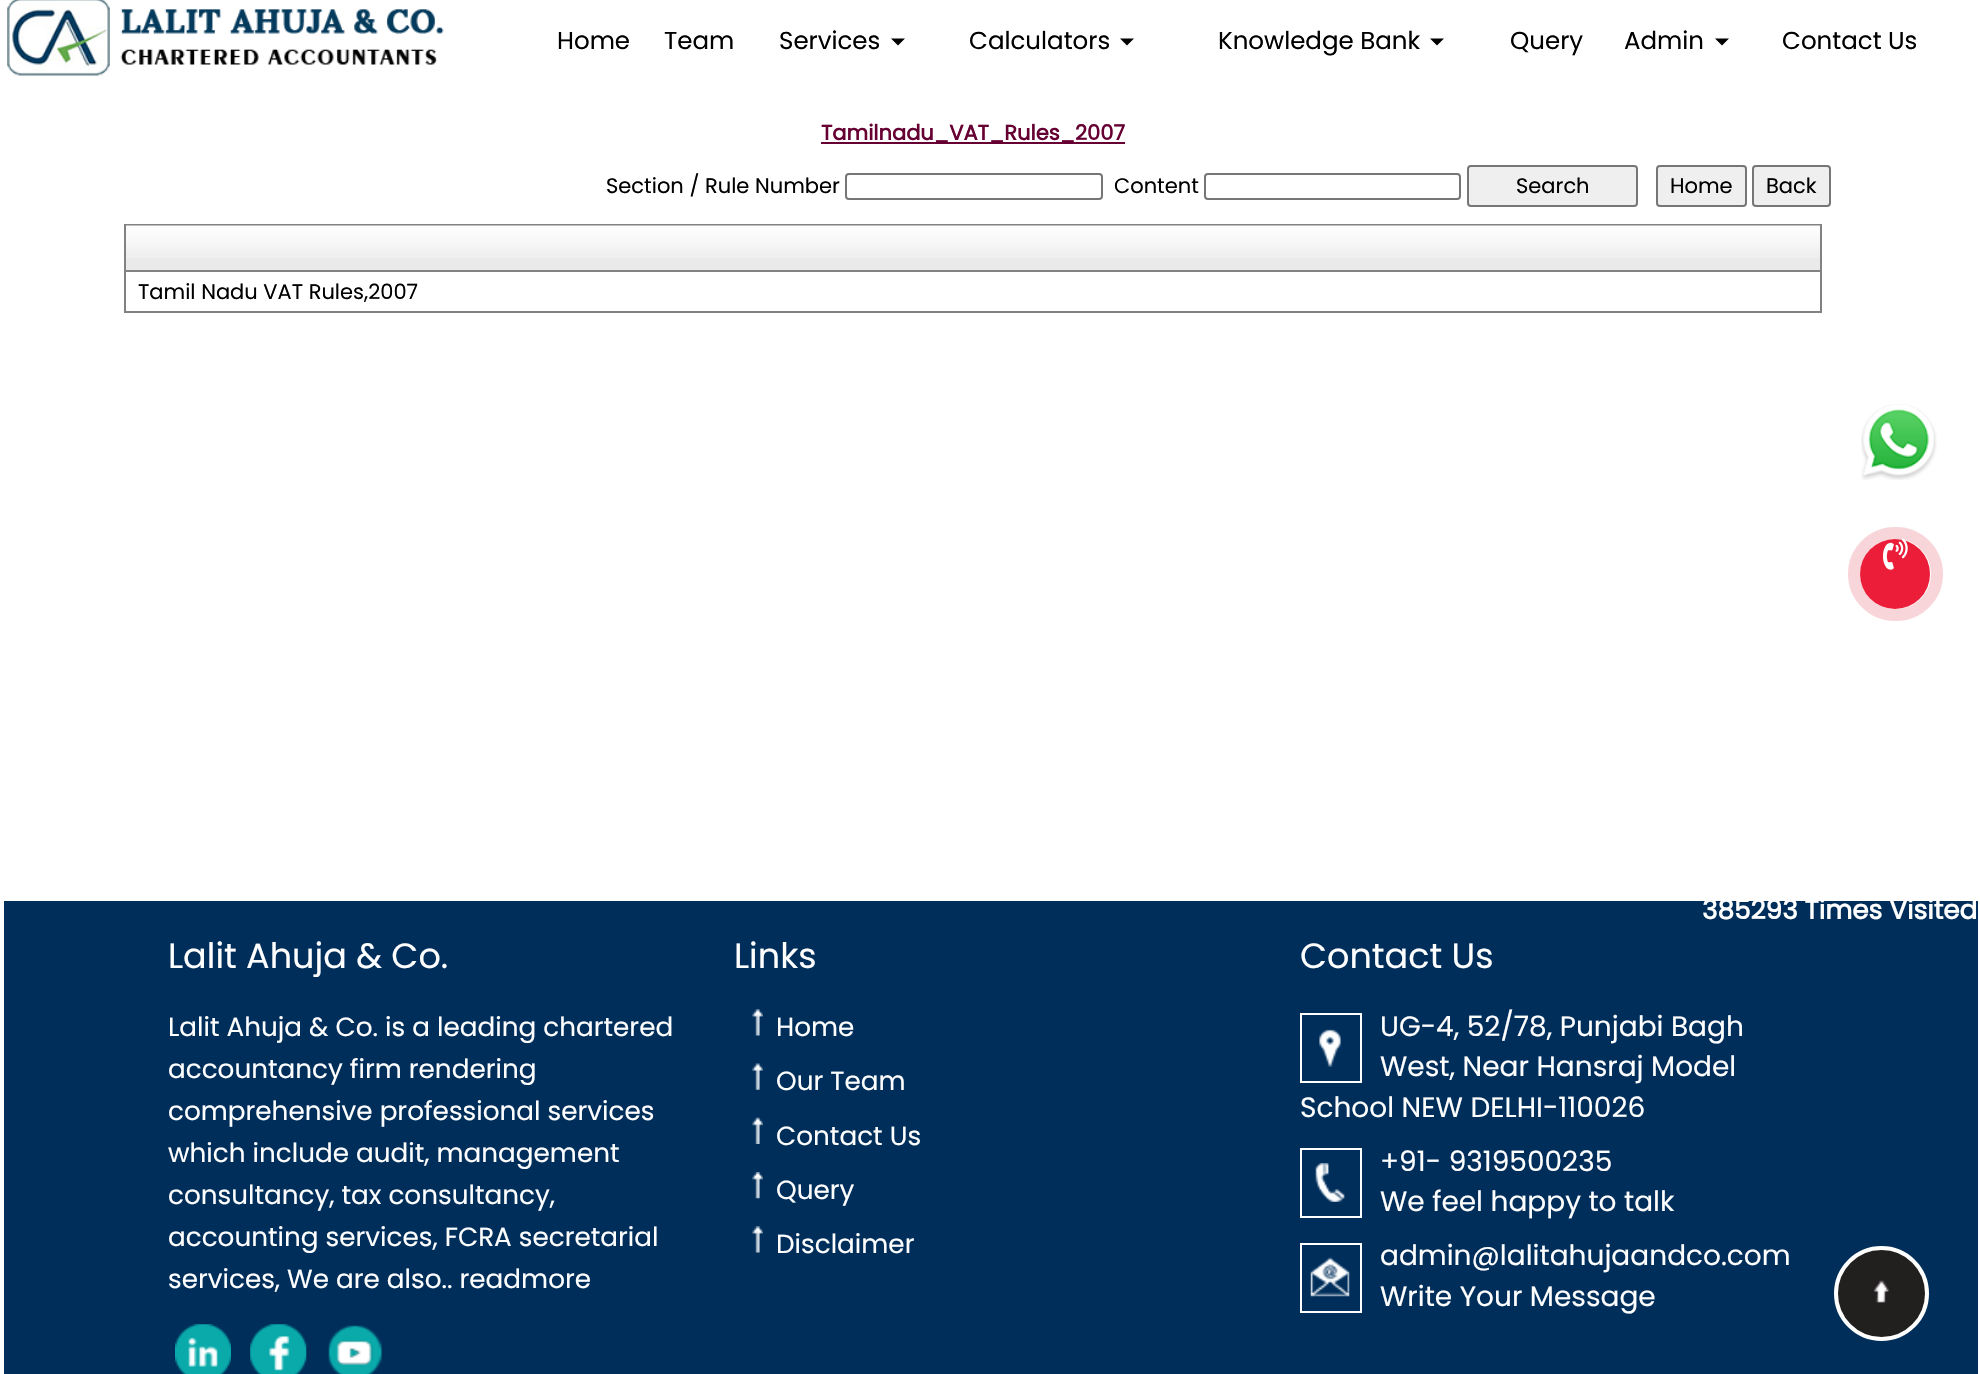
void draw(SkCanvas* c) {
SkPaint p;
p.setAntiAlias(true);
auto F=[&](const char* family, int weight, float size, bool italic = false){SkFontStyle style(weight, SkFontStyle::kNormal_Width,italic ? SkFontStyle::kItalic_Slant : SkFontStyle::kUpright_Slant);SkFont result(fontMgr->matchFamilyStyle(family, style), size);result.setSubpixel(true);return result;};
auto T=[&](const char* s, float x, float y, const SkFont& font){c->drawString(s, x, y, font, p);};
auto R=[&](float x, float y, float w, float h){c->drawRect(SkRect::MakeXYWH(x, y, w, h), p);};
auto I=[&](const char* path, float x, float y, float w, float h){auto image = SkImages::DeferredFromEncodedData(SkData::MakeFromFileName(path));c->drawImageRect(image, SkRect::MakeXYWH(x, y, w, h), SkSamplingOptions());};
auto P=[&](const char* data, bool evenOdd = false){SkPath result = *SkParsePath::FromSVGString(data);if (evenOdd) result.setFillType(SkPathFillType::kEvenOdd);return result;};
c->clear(0xffffffff);
I("1.png",7,0,437,76);
auto f1 = F("Poppins",400,24.5);
p.setColor(0xff000000);
T("Home",557,49,f1);
T("Team",664,49,f1);
T("Services",779,49,f1);
c->drawPath(P("M891 38.5h14l-7 7z"),p);
T("Calculators",969,49,f1);
c->drawPath(P("M1120 38.5h14l-7 7z"),p);
T("Knowledge Bank",1218,49,f1);
c->drawPath(P("M1430 38.5h14l-7 7z"),p);
T("Query",1510,49,f1);
T("Admin",1624,49,f1);
c->drawPath(P("M1715 38.5h14l-7 7z"),p);
T("Contact Us",1782,49,f1);
p.setColor(0xff660033);
R(821,142,304,2);
auto f2 = F("Poppins",700,21);
T("Tamilnadu_VAT_Rules_2007",821,140,f2);
auto f3 = F("Poppins",400,21);
p.setColor(0xff000000);
T("Section / Rule Number",606,193,f3);
p.setStroke(true);
p.setStrokeWidth(2);
p.setColor(0xff767676);
c->drawRoundRect(SkRect::MakeXYWH(846,174,256,25),3,3,p);
p.setStroke(false);
p.setColor(0xff000000);
T("Content",1114,193,f3);
p.setStroke(true);
p.setColor(0xff767676);
c->drawRoundRect(SkRect::MakeXYWH(1205,174,255,25),3,3,p);
p.setStroke(false);
p.setColor(0xffefefef);
c->drawRoundRect(SkRect::MakeXYWH(1468,166,169,40),3,3,p);
p.setStroke(true);
p.setColor(0xff767676);
c->drawRoundRect(SkRect::MakeXYWH(1468,166,169,40),3,3,p);
p.setStroke(false);
p.setColor(0xff000000);
T("Search",1516,193,f3);
p.setColor(0xffefefef);
c->drawRoundRect(SkRect::MakeXYWH(1657,166,89,40),3,3,p);
p.setStroke(true);
p.setColor(0xff767676);
c->drawRoundRect(SkRect::MakeXYWH(1657,166,89,40),3,3,p);
p.setStroke(false);
p.setColor(0xff000000);
T("Home",1670,193,f3);
p.setColor(0xffefefef);
c->drawRoundRect(SkRect::MakeXYWH(1753,166,77,40),3,3,p);
p.setStroke(true);
p.setColor(0xff767676);
c->drawRoundRect(SkRect::MakeXYWH(1753,166,77,40),3,3,p);
p.setStroke(false);
p.setColor(0xff000000);
T("Back",1766,193,f3);
p.setStroke(true);
p.setColor(0xff828282);
c->drawRect(SkRect::MakeXYWH(125,225,1696,87),p);
p.setStroke(false);
p.setColor(0xffeaeaea);
R(126,258,1694,12);
I("2.png",126,225,1694,33);
p.setColor(0xff828282);
R(126,270,1694,2);
p.setColor(0xff000000);
T("Tamil Nadu VAT Rules,2007",138,299,f3);
p.setColor(0xff002e5b);
R(4,901,1974,473);
auto f4 = F("Poppins",700,26.25);
p.setColor(0xffffffff);
T("385293 Times Visited",1702,919,f4);
I("3.png",1861,404,76,76);
p.setStroke(true);
p.setStrokeWidth(12);
p.setColor(0xfff8d5d8);
c->drawRoundRect(SkRect::MakeXYWH(1854,533,83,82),41,41,p);
p.setStroke(false);
p.setColor(0xffeb1d39);
c->drawCircle(1895,574,35,p);
I("4.png",1883,538,25,32);
auto f5 = F("Poppins",400,35);
p.setColor(0xffffffff);
T("Lalit Ahuja & Co.",168,968,f5);
auto f6 = F("Poppins",400,26.25);
T("Lalit Ahuja & Co. is a leading chartered",168,1036,f6);
T("accountancy firm rendering",168,1078,f6);
T("comprehensive professional services",168,1120,f6);
T("which include audit, management",168,1162,f6);
T("consultancy, tax consultancy,",168,1204,f6);
T("accounting services, FCRA secretarial",168,1246,f6);
T("services, We are also.. readmore",168,1288,f6);
I("5.png",175,1324,56,50);
I("6.png",250,1324,57,50);
I("7.png",328,1325,54,49);
T("Links",734,968,f5);
I("8.png",752,1009,11,27);
T("Home",776,1036,f6);
I("9.png",752,1063,11,27);
T("Our Team",776,1090,f6);
I("10.png",752,1117,11,27);
T("Contact Us",776,1145,f6);
I("11.png",752,1172,11,27);
T("Query",776,1199,f6);
I("8.png",752,1226,11,27);
T("Disclaimer",776,1253,f6);
T("Contact Us",1300,968,f5);
p.setStroke(true);
p.setStrokeWidth(2);
c->drawRect(SkRect::MakeXYWH(1301,1014,60,68),p);
I("12.png",1319,1029,22,38);
auto f7 = F("Poppins",400,28);
p.setStroke(false);
T("UG-4, 52/78, Punjabi Bagh",1380,1036,f7);
T("West, Near Hansraj Model",1380,1076,f7);
T("School NEW DELHI-110026",1300,1117,f7);
p.setStroke(true);
c->drawRect(SkRect::MakeXYWH(1301,1149,60,68),p);
I("13.png",1315,1163,30,39);
p.setStroke(false);
T("+91- 9319500235",1380,1171,f7);
T("We feel happy to talk",1380,1211,f7);
p.setStroke(true);
c->drawRect(SkRect::MakeXYWH(1301,1244,60,68),p);
I("14.png",1310,1257,40,40);
p.setStroke(false);
T("admin@lalitahujaandco.com",1380,1265,f7);
T("Write Your Message",1380,1306,f7);
p.setColor(0xff221f1f);
c->drawCircle(1881.5,1293.5,45.5,p);
p.setStroke(true);
p.setStrokeWidth(4);
p.setColor(0xffffffff);
c->drawCircle(1881.5,1293.5,45.5,p);
I("15.png",1873,1280,16,23);
}
